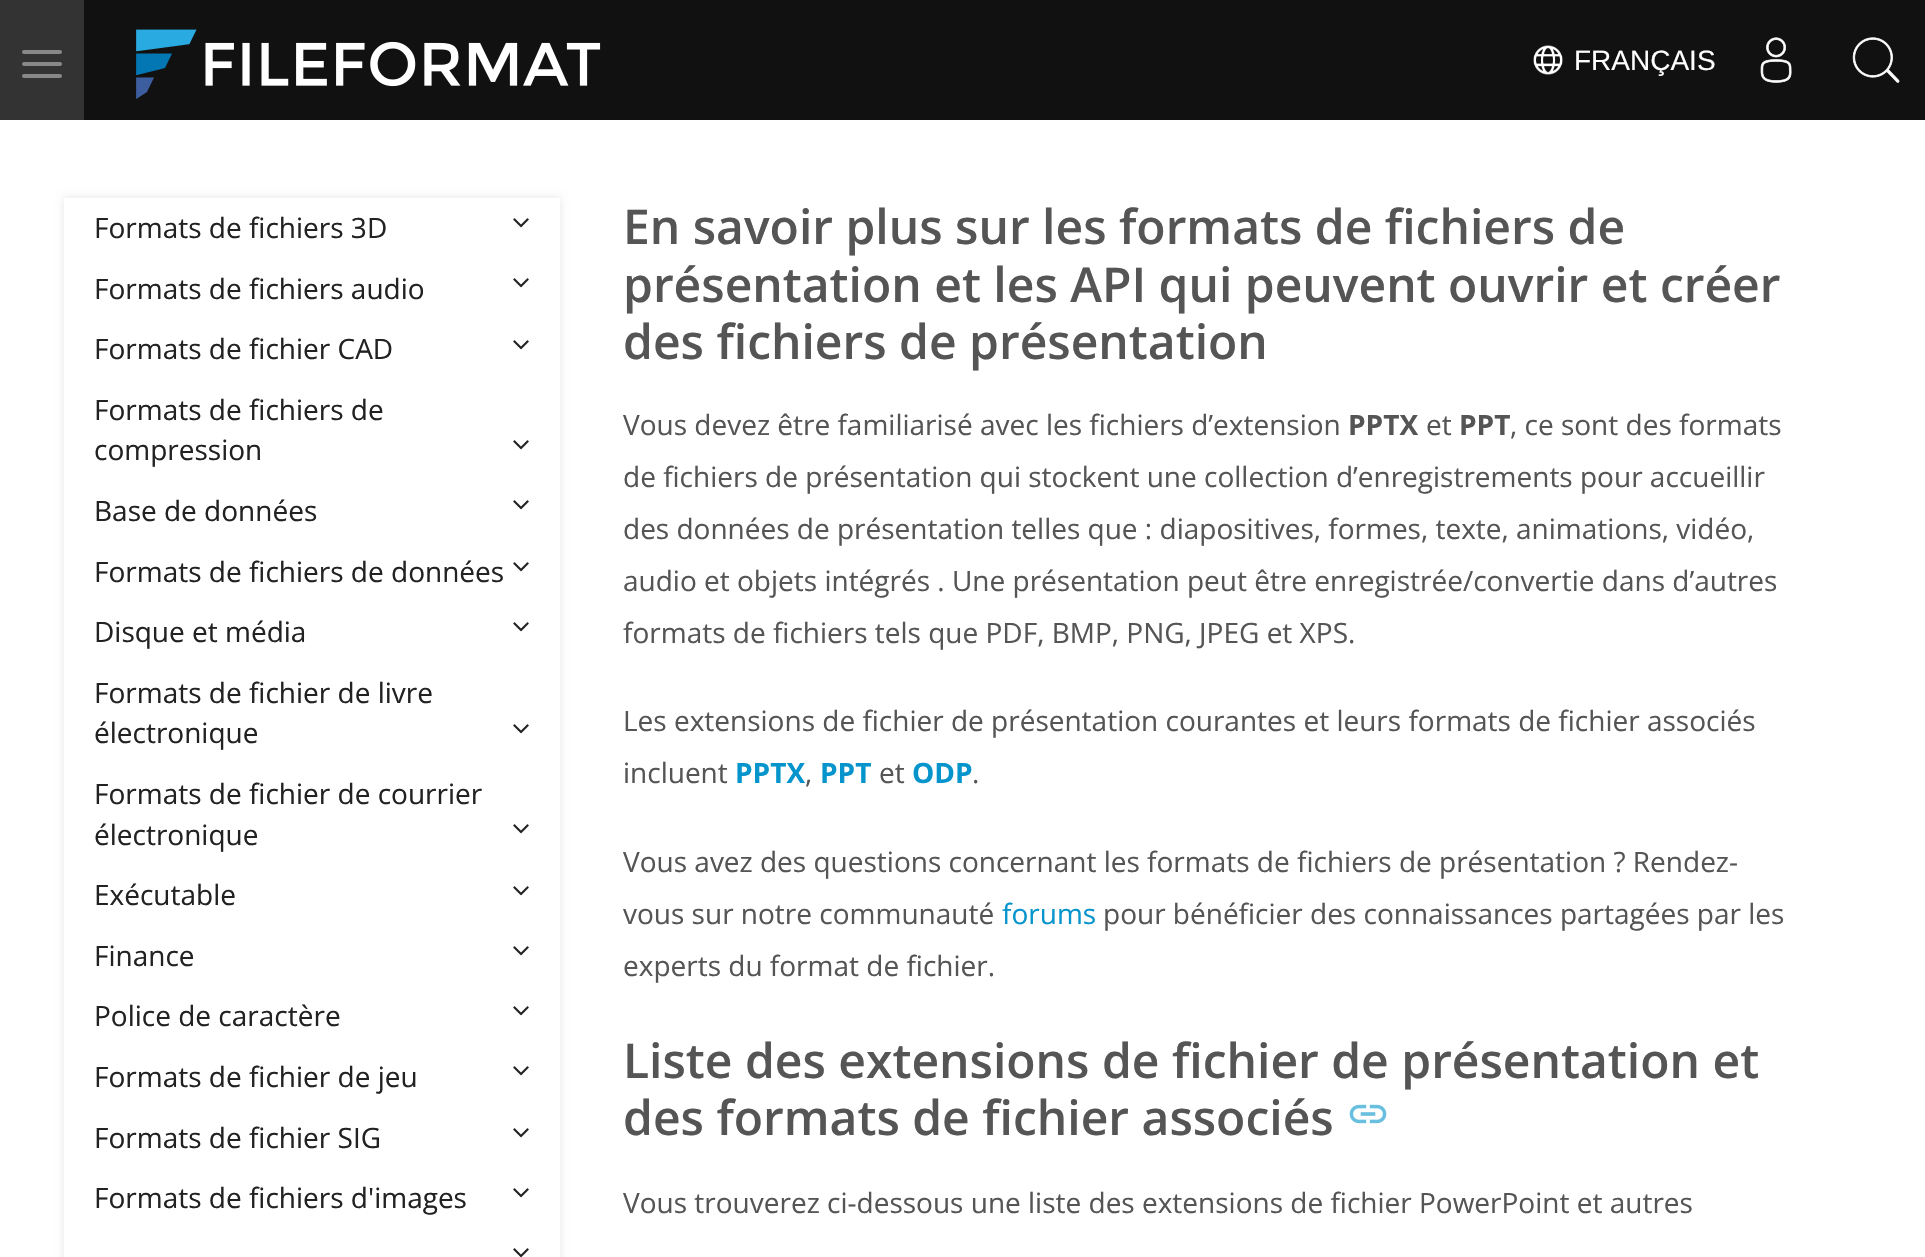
void draw(SkCanvas* c) {
SkPaint p;
p.setAntiAlias(true);
auto F=[&](const char* family, int weight, float size, bool italic = false){SkFontStyle style(weight, SkFontStyle::kNormal_Width,italic ? SkFontStyle::kItalic_Slant : SkFontStyle::kUpright_Slant);SkFont result(fontMgr->matchFamilyStyle(family, style), size);result.setSubpixel(true);return result;};
auto T=[&](const char* s, float x, float y, const SkFont& font){c->drawString(s, x, y, font, p);};
auto R=[&](float x, float y, float w, float h){c->drawRect(SkRect::MakeXYWH(x, y, w, h), p);};
auto Q=[&](float x, float y, float w, float h, float radius){c->drawRoundRect(SkRect::MakeXYWH(x, y, w, h), radius, radius, p);};
auto I=[&](const char* path, float x, float y, float w, float h){auto image = SkImages::DeferredFromEncodedData(SkData::MakeFromFileName(path));c->drawImageRect(image, SkRect::MakeXYWH(x, y, w, h), SkSamplingOptions());};
auto P=[&](const char* data, bool evenOdd = false){SkPath result = *SkParsePath::FromSVGString(data);if (evenOdd) result.setFillType(SkPathFillType::kEvenOdd);return result;};
c->clear(0xffffffff);
p.setColor(0xff111111);
R(84,0,1841,120);
p.setColor(0xff333333);
R(0,0,84,120);
p.setColor(0xff888888);
Q(22,50,40,4,2);
Q(22,62,40,4,2);
Q(22,74,40,4,2);
I("1.png",136,29,465,70);
I("2.png",1533,45,30,30);
auto f1 = F("Liberation Sans",400,28);
p.setColor(0xffffffff);
T("FRANÇAIS",1574,70,f1);
I("3.png",1760,37,32,46);
I("4.png",1852,37,48,46);
c->save();
c->clipPath(P("M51 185h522v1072h-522zm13 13h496v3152h-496z",true),true);
p.setColor(0x1a000000);
p.setMaskFilter(SkMaskFilter::MakeBlur(kNormal_SkBlurStyle, 4));
c->drawRect(SkRect::MakeXYWH(64,198,496,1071),p);
p.setMaskFilter(nullptr);
c->restore();
auto f2 = F("Open Sans",400,28);
p.setColor(0xff222222);
T("Formats de fichiers 3D",94,238,f2);
I("5.png",513,218,16,10);
T("Formats de fichiers audio",94,299,f2);
I("5.png",513,278,16,10);
T("Formats de fichier CAD",94,359,f2);
I("5.png",513,340,16,10);
T("Formats de fichiers de",94,420,f2);
T("compression",94,460,f2);
I("5.png",513,440,16,10);
T("Base de données",94,521,f2);
I("5.png",513,500,16,10);
T("Formats de fichiers de données",94,582,f2);
I("5.png",513,562,16,10);
T("Disque et média",94,642,f2);
I("5.png",513,622,16,10);
T("Formats de fichier de livre",94,703,f2);
T("électronique",94,743,f2);
I("5.png",513,724,16,10);
T("Formats de fichier de courrier",94,804,f2);
T("électronique",94,845,f2);
I("5.png",513,824,16,10);
T("Exécutable",94,905,f2);
I("5.png",513,886,16,10);
T("Finance",94,966,f2);
I("5.png",513,946,16,10);
T("Police de caractère",94,1026,f2);
I("5.png",513,1006,16,10);
T("Formats de fichier de jeu",94,1087,f2);
I("5.png",513,1066,16,10);
T("Formats de fichier SIG",94,1148,f2);
I("5.png",513,1128,16,10);
T("Formats de fichiers d'images",94,1208,f2);
I("5.png",513,1188,16,10);
I("6.png",513,1248,16,9);
auto f3 = F("Open Sans",600,48);
p.setColor(0xff555555);
T("En savoir plus sur les formats de fichiers de",623,244,f3);
T("présentation et les API qui peuvent ouvrir et créer",623,302,f3);
T("des fichiers de présentation",623,359,f3);
T("Vous devez être familiarisé avec les fichiers d’extension",623,435,f2);
auto f4 = F("Open Sans",700,28);
T("PPTX",1348,435,f4);
T("et",1426,435,f2);
T("PPT",1459,435,f4);
T(", ce sont des formats",1510,435,f2);
T("de fichiers de présentation qui stockent une collection d’enregistrements pour accueillir",623,487,f2);
T("des données de présentation telles que : diapositives, formes, texte, animations, vidéo,",623,539,f2);
T("audio et objets intégrés . Une présentation peut être enregistrée/convertie dans d’autres",623,591,f2);
T("formats de fichiers tels que PDF, BMP, PNG, JPEG et XPS.",623,643,f2);
T("Les extensions de fichier de présentation courantes et leurs formats de fichier associés",623,731,f2);
T("incluent",623,783,f2);
p.setColor(0xff0594cb);
T("PPTX",735,783,f4);
p.setColor(0xff555555);
T(",",805,783,f2);
p.setColor(0xff0594cb);
T("PPT",820,783,f4);
p.setColor(0xff555555);
T("et",879,783,f2);
p.setColor(0xff0594cb);
T("ODP",912,783,f4);
p.setColor(0xff555555);
T(".",972,783,f2);
T("Vous avez des questions concernant les formats de fichiers de présentation ? Rendez-",623,872,f2);
T("vous sur notre communauté",623,924,f2);
p.setColor(0xff0594cb);
T("forums",1002,924,f2);
p.setColor(0xff555555);
T("pour bénéficier des connaissances partagées par les",1103,924,f2);
T("experts du format de fichier.",623,976,f2);
T("Liste des extensions de fichier de présentation et",623,1078,f3);
T("des formats de fichier associés",623,1135,f3);
I("7.png",1349,1104,38,20);
T("Vous trouverez ci-dessous une liste des extensions de fichier PowerPoint et autres",623,1213,f2);
}
